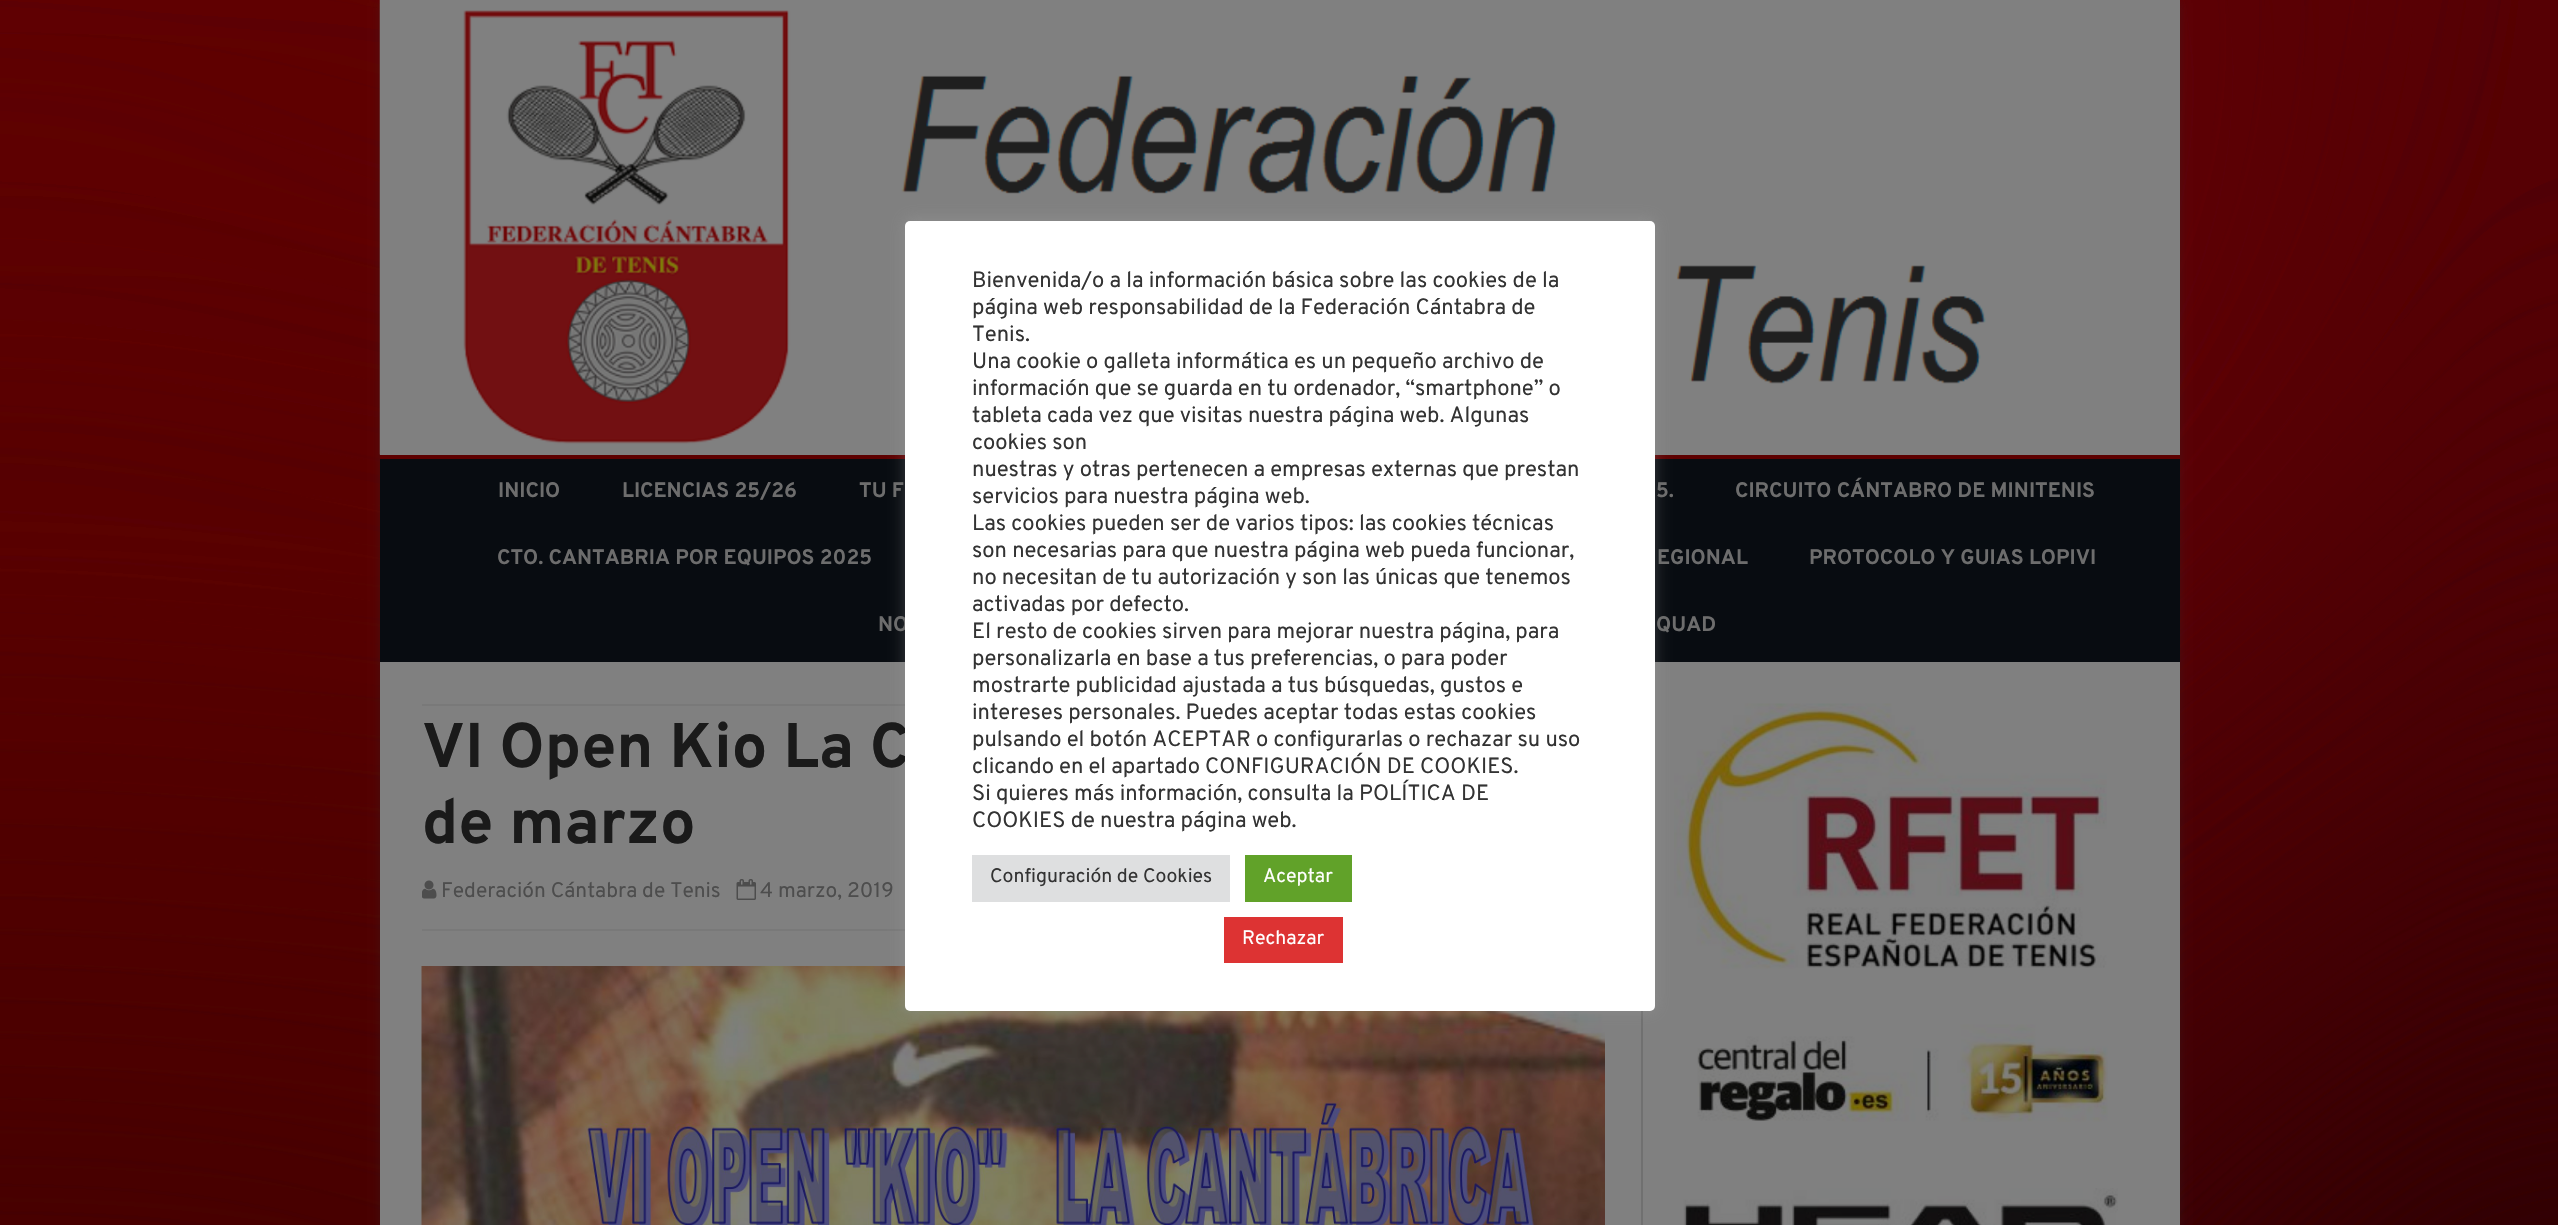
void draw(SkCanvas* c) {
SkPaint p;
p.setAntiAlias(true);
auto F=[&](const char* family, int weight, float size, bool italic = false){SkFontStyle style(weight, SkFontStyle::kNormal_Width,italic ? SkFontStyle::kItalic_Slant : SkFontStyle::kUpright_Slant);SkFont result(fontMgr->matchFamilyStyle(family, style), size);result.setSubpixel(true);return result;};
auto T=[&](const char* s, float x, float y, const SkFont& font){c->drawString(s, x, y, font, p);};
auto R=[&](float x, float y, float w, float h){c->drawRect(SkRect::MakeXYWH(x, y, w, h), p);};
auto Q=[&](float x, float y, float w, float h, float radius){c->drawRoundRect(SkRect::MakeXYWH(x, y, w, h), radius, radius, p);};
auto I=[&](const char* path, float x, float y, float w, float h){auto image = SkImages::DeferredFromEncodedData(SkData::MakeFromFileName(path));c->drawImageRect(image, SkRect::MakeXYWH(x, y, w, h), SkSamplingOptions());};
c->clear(0xffffffff);
I("1.png",0,0,2558,1225);
p.setColor(0x4d323232);
p.setMaskFilter(SkMaskFilter::MakeBlur(kNormal_SkBlurStyle, 4.5));
c->drawRect(SkRect::MakeXYWH(380,3,1800,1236),p);
p.setMaskFilter(nullptr);
p.setColor(0xff808080);
R(380,0,1800,1225);
I("2.png",379,0,1607,455);
p.setColor(0xff5d0000);
R(380,455,1800,4);
p.setColor(0xff080c11);
R(380,459,1800,203);
p.setColor(0xff707070);
R(1641,1011,2,214);
p.setColor(0xff797979);
R(422,704,483,2);
R(422,929,483,2);
I("5.png",421,966,1184,259);
I("6.png",1674,703,433,266);
p.setColor(0x4dacabab);
p.setMaskFilter(SkMaskFilter::MakeBlur(kNormal_SkBlurStyle, 7.5));
c->drawRoundRect(SkRect::MakeXYWH(905,219,750,791),5,5,p);
p.setMaskFilter(nullptr);
auto f1 = F("Overpass",700,21);
p.setColor(0xff6d6d6d);
T("NO",878,631,f1);
auto f2 = F("Overpass",700,63);
p.setColor(0xff1a1a1a);
T("VI Open Kio La C",422,767,f2);
p.setColor(0xffffffff);
Q(905,221,750,790,5);
auto f3 = F("Overpass",400,22);
p.setColor(0xff333333);
T("Bienvenida/o a la información básica sobre las cookies de la",972,287,f3);
T("página web responsabilidad de la Federación Cántabra de",972,314,f3);
T("Tenis.",972,341,f3);
T("Una cookie o galleta informática es un pequeño archivo de",972,368,f3);
T("información que se guarda en tu ordenador, “smartphone” o",972,395,f3);
T("tableta cada vez que visitas nuestra página web. Algunas",972,422,f3);
T("cookies son",972,449,f3);
T("nuestras y otras pertenecen a empresas externas que prestan",972,476,f3);
T("servicios para nuestra página web.",972,503,f3);
T("Las cookies pueden ser de varios tipos: las cookies técnicas",972,530,f3);
T("son necesarias para que nuestra página web pueda funcionar,",972,557,f3);
T("no necesitan de tu autorización y son las únicas que tenemos",972,584,f3);
T("activadas por defecto.",972,611,f3);
T("El resto de cookies sirven para mejorar nuestra página, para",972,638,f3);
T("personalizarla en base a tus preferencias, o para poder",972,665,f3);
T("mostrarte publicidad ajustada a tus búsquedas, gustos e",972,692,f3);
T("intereses personales. Puedes aceptar todas estas cookies",972,719,f3);
T("pulsando el botón ACEPTAR o configurarlas o rechazar su uso",972,746,f3);
T("clicando en el apartado CONFIGURACIÓN DE COOKIES.",972,773,f3);
T("Si quieres más información, consulta la POLÍTICA DE",972,800,f3);
T("COOKIES de nuestra página web.",972,827,f3);
p.setColor(0xffdedfe0);
R(972,855,258,47);
auto f4 = F("Overpass",400,19.5);
p.setColor(0xff333333);
T("Configuración de Cookies",990,882,f4);
p.setColor(0xff61a229);
R(1245,855,107,47);
p.setColor(0xffffffff);
T("Aceptar",1263,882,f4);
p.setColor(0xffdd3333);
R(1224,917,119,46);
p.setColor(0xffffffff);
T("Rechazar",1242,944,f4);
p.setColor(0xff6d6d6d);
T("INICIO",498,497,f1);
T("LICENCIAS 25/26",622,497,f1);
T("TU F",859,497,f1);
T("5.",1656,497,f1);
T("CIRCUITO CÁNTABRO DE MINITENIS",1735,497,f1);
T("CTO. CANTABRIA POR EQUIPOS 2025",497,564,f1);
T("EGIONAL",1657,564,f1);
T("PROTOCOLO Y GUIAS LOPIVI",1809,564,f1);
T("QUAD",1656,631,f1);
p.setColor(0xff1a1a1a);
T("de marzo",422,843,f2);
I("3.png",422,880,15,19);
auto f5 = F("Overpass",400,21);
p.setColor(0xff4d4d4d);
T("Federación Cántabra de Tenis",441,897,f5);
I("4.png",736,879,20,21);
T("4 marzo, 2019",760,897,f5);
I("7.png",1697,1024,411,98);
I("8.png",1683,1188,435,37);
}
